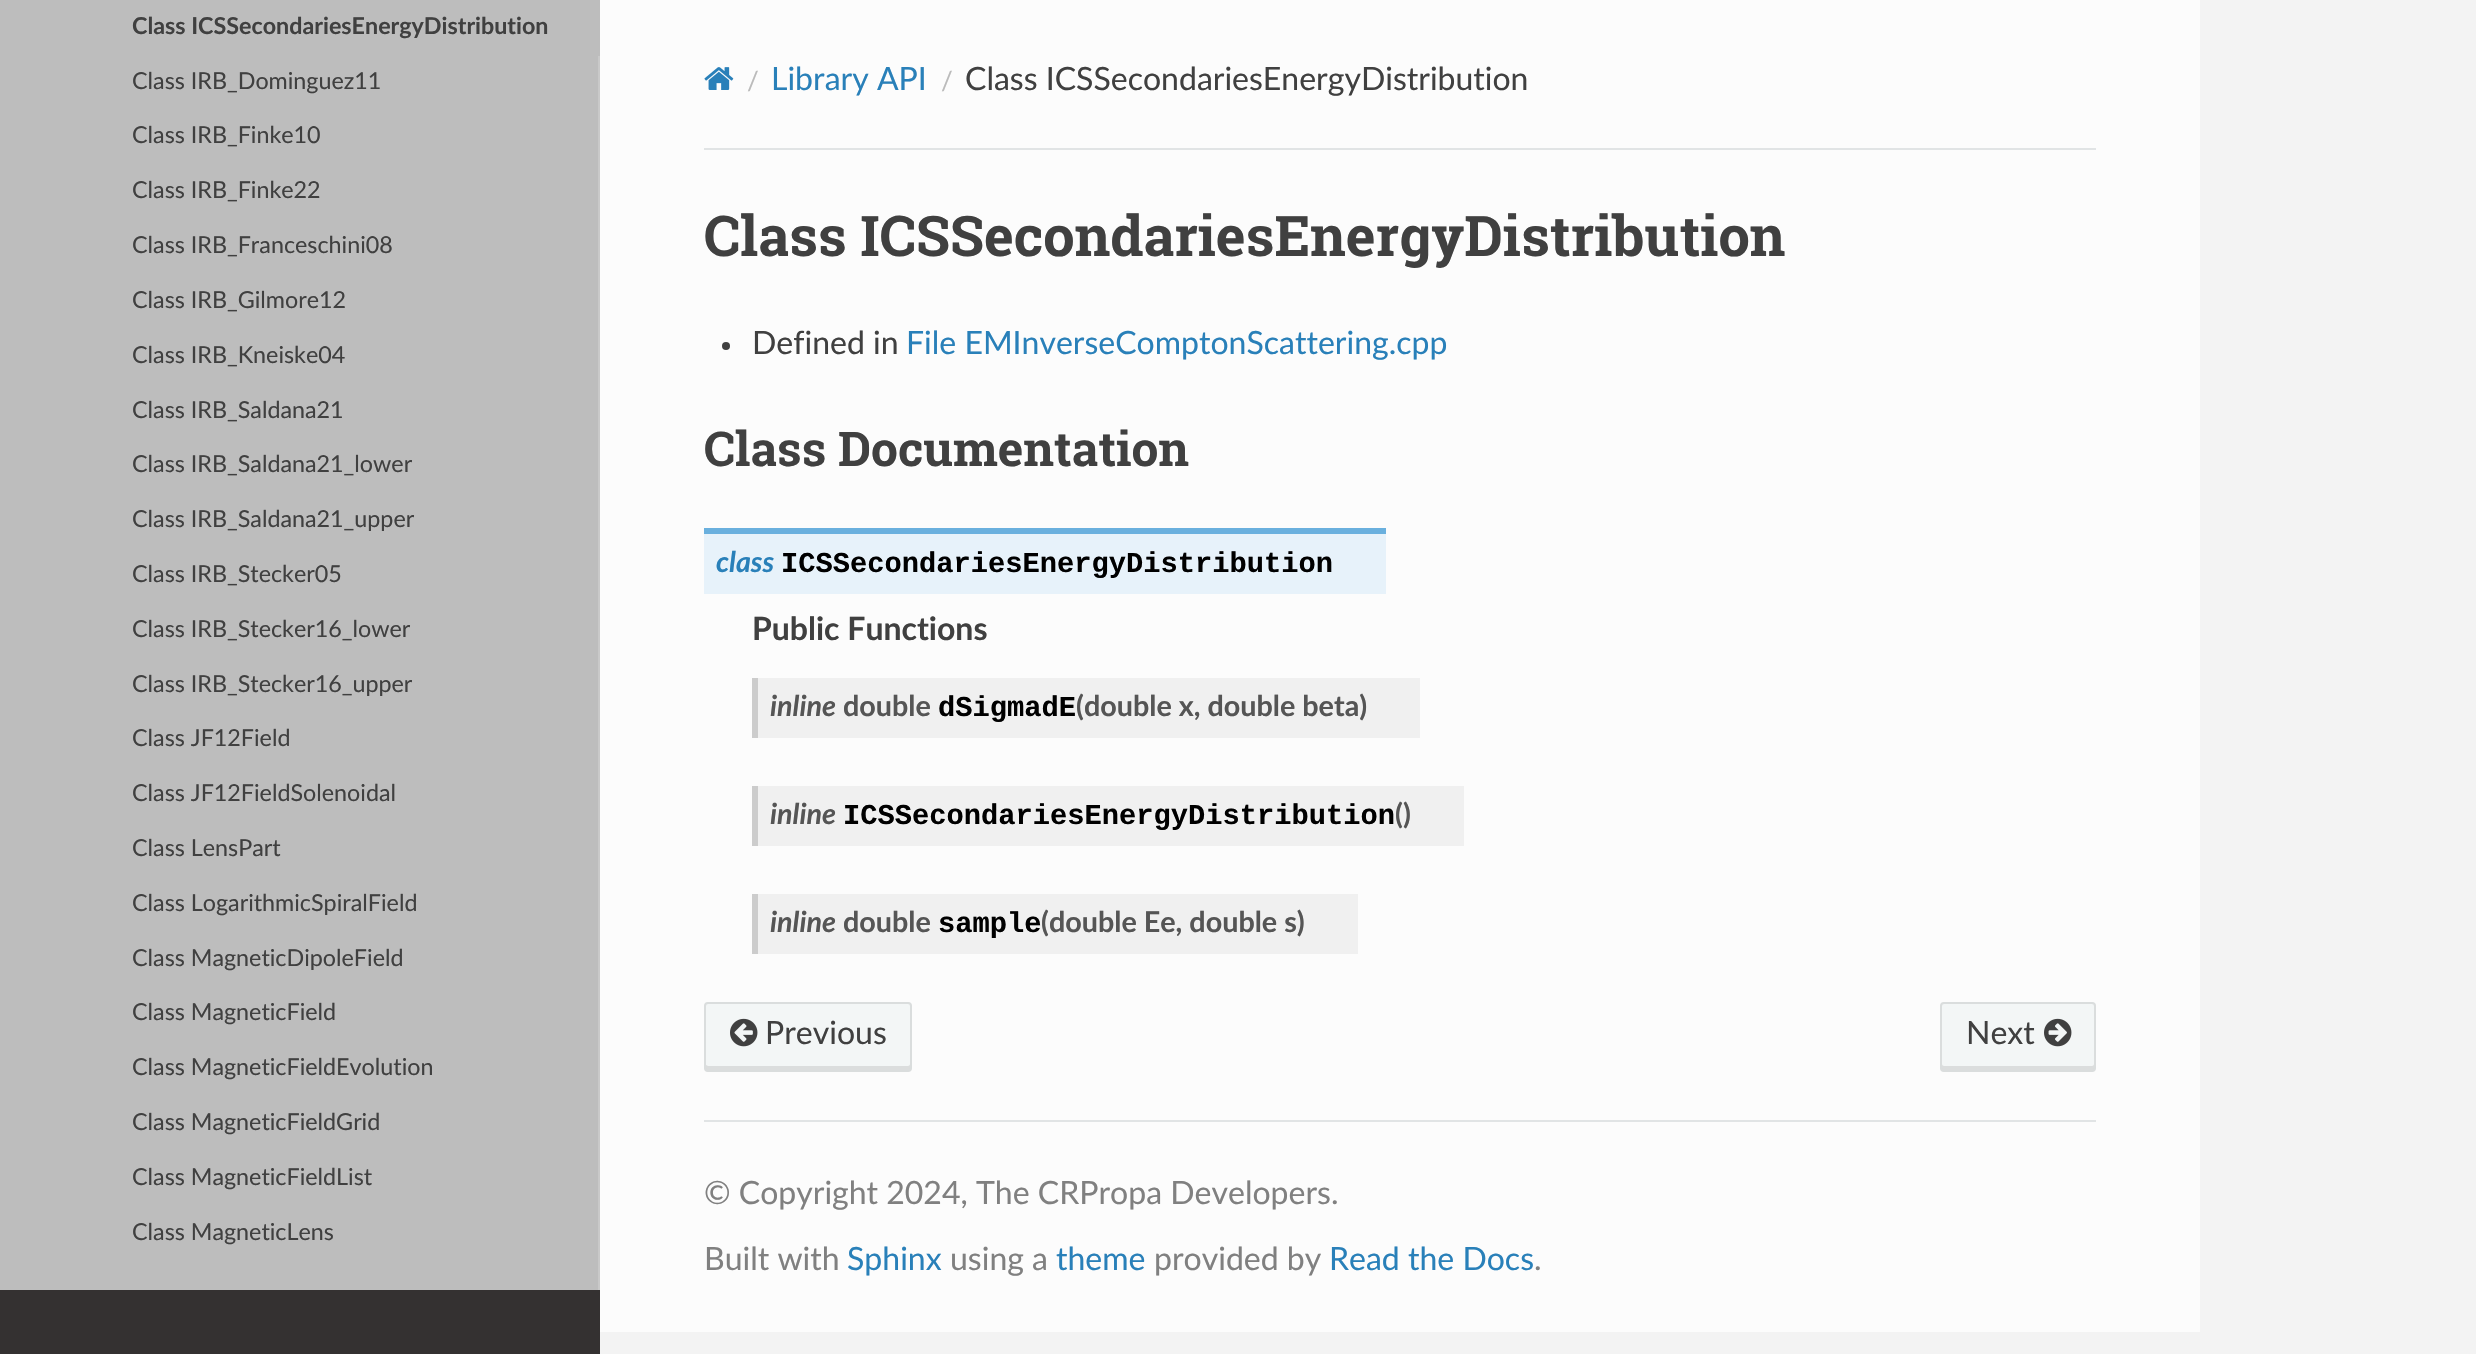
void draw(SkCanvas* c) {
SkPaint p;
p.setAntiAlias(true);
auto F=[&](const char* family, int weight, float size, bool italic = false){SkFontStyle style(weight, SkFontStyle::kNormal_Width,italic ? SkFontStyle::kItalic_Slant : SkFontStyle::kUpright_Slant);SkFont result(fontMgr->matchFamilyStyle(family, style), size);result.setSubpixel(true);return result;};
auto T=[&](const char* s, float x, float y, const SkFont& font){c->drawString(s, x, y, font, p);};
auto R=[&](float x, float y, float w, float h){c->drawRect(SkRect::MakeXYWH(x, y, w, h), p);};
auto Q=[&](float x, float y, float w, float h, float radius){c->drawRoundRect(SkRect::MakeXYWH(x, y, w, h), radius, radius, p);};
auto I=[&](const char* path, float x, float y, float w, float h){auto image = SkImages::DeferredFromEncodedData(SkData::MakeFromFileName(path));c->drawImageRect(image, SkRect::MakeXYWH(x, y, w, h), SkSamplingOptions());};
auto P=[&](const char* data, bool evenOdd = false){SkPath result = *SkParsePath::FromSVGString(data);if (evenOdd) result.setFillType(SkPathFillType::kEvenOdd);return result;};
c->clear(0xfff3f3f3);
p.setColor(0xff343131);
R(0,1290,600,64);
p.setColor(0xffbdbdbd);
R(0,0,600,56);
auto f1 = F("Lato",700,23.3);
p.setColor(0xff404040);
T("Class ICSSecondariesEnergyDistribution",132,34,f1);
p.setColor(0xffbdbdbd);
R(0,56,598,1234);
p.setColor(0xffc9c9c9);
R(598,56,2,1234);
auto f2 = F("Lato",400,23.3);
p.setColor(0xff404040);
T("Class IRB_Dominguez11",132,89,f2);
T("Class IRB_Finke10",132,143,f2);
T("Class IRB_Finke22",132,198,f2);
T("Class IRB_Franceschini08",132,253,f2);
T("Class IRB_Gilmore12",132,308,f2);
T("Class IRB_Kneiske04",132,363,f2);
T("Class IRB_Saldana21",132,418,f2);
T("Class IRB_Saldana21_lower",132,472,f2);
T("Class IRB_Saldana21_upper",132,527,f2);
T("Class IRB_Stecker05",132,582,f2);
T("Class IRB_Stecker16_lower",132,637,f2);
T("Class IRB_Stecker16_upper",132,692,f2);
T("Class JF12Field",132,746,f2);
T("Class JF12FieldSolenoidal",132,801,f2);
T("Class LensPart",132,856,f2);
T("Class LogarithmicSpiralField",132,911,f2);
T("Class MagneticDipoleField",132,966,f2);
T("Class MagneticField",132,1020,f2);
T("Class MagneticFieldEvolution",132,1075,f2);
T("Class MagneticFieldGrid",132,1130,f2);
T("Class MagneticFieldList",132,1185,f2);
T("Class MagneticLens",132,1240,f2);
p.setColor(0xfffcfcfc);
R(600,0,1600,1332);
I("1.png",704,67,30,23);
auto f3 = F("Lato",400,26);
p.setColor(0xffbbbbbb);
T("/",747,90,f3);
auto f4 = F("Lato",400,32);
p.setColor(0xff2980b9);
T("Library API",771,90,f4);
p.setColor(0xffbbbbbb);
T("/",941,90,f3);
p.setColor(0xff404040);
T("Class ICSSecondariesEnergyDistribution",965,90,f4);
p.setColor(0xffe1e4e5);
R(704,148,1392,2);
auto f5 = F("Roboto Slab",700,56);
p.setColor(0xff404040);
T("Class ICSSecondariesEnergyDistribution",704,256,f5);
c->drawCircle(726,346,4,p);
T("Defined in",752,354,f4);
p.setColor(0xff2980b9);
T("File EMInverseComptonScattering.cpp",906,354,f4);
auto f6 = F("Roboto Slab",700,48);
p.setColor(0xff404040);
T("Class Documentation",704,466,f6);
p.setColor(0xffe7f2fa);
R(704,534,682,60);
p.setColor(0xff6ab0de);
R(704,528,682,6);
auto f7 = F("Lato",700,28.75,true);
p.setColor(0xff2980b9);
T("class",716,572,f7);
auto f8 = F("Liberation Mono",700,28.75);
p.setColor(0xff000000);
T("ICSSecondariesEnergyDistribution",781,572,f8);
auto f9 = F("Lato",700,32);
p.setColor(0xff404040);
T("Public Functions",752,640,f9);
p.setColor(0xfff0f0f0);
R(758,678,662,60);
p.setColor(0xffcccccc);
R(752,678,6,60);
p.setColor(0xff555555);
T("inline",770,716,f7);
auto f10 = F("Lato",700,28.75);
T("double",843,716,f10);
p.setColor(0xff000000);
T("dSigmadE",938,716,f8);
p.setColor(0xff555555);
T("(double x, double beta)",1076,716,f10);
p.setColor(0xfff0f0f0);
R(758,786,706,60);
p.setColor(0xffcccccc);
R(752,786,6,60);
p.setColor(0xff555555);
T("inline",770,824,f7);
p.setColor(0xff000000);
T("ICSSecondariesEnergyDistribution",843,824,f8);
p.setColor(0xff555555);
T("()",1395,824,f10);
p.setColor(0xfff0f0f0);
R(758,894,600,60);
p.setColor(0xffcccccc);
R(752,894,6,60);
p.setColor(0xff555555);
T("inline",770,932,f7);
T("double",843,932,f10);
p.setColor(0xff000000);
T("sample",938,932,f8);
p.setColor(0xff555555);
T("(double Ee, double s)",1041,932,f10);
p.setColor(0xfff3f6f6);
Q(704,1002,208,70,4);
p.setColor(0xffdbdddd);
c->drawPath(P("M706 1064v4c0 1 1 2 2 2h200c1 0 2-1 2-2v-4c0 1-1 2-2 2h-200l-2-1z"),p);
p.setStroke(true);
p.setStrokeWidth(2);
p.setColor(0x1a000000);
c->drawRoundRect(SkRect::MakeXYWH(705,1003,206,68),3,3,p);
I("2.png",730,1018,28,29);
p.setStroke(false);
p.setColor(0xff404040);
T("Previous",765,1044,f4);
p.setColor(0xfff3f6f6);
Q(1940,1002,156,70,4);
p.setColor(0xffdbdddd);
c->drawPath(P("M1942 1064v4c0 1 1 2 2 2h148c1 0 2-1 2-2v-4c0 1-1 2-2 2h-148c-1 0-2-1-2-2z"),p);
p.setStroke(true);
p.setColor(0x1a000000);
c->drawRoundRect(SkRect::MakeXYWH(1941,1003,154,68),3,3,p);
p.setStroke(false);
p.setColor(0xff404040);
T("Next",1966,1044,f4);
I("3.png",2044,1018,28,29);
p.setColor(0xffe1e4e5);
R(704,1120,1392,2);
p.setColor(0xff808080);
T("© Copyright 2024, The CRPropa Developers.",704,1204,f4);
T("Built with",704,1270,f4);
p.setColor(0xff2980b9);
T("Sphinx",847,1270,f4);
p.setColor(0xff808080);
T("using a",950,1270,f4);
p.setColor(0xff2980b9);
T("theme",1056,1270,f4);
p.setColor(0xff808080);
T("provided by",1154,1270,f4);
p.setColor(0xff2980b9);
T("Read the Docs",1329,1270,f4);
p.setColor(0xff808080);
T(".",1534,1270,f4);
}
